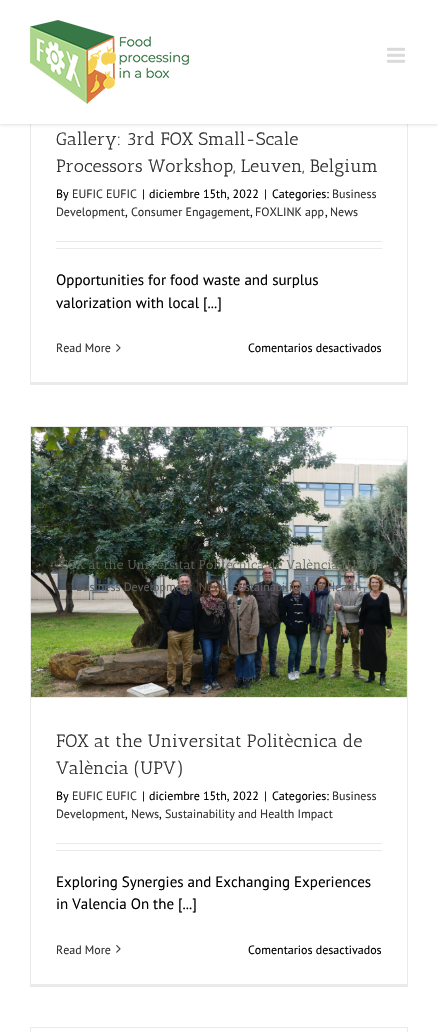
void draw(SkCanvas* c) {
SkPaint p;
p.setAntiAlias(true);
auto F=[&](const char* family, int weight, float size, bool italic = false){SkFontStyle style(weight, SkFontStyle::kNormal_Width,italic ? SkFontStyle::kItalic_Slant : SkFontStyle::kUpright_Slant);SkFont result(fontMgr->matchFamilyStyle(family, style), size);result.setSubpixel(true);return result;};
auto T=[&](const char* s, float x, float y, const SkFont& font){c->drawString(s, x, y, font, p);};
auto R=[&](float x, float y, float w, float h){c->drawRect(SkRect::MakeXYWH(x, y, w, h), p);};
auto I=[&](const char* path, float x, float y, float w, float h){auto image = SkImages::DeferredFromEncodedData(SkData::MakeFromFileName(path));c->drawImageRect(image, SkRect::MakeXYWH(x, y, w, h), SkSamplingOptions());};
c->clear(0xffffffff);
p.setColor(0xffebeaea);
R(407,124,1,261);
R(30,382,378,3);
R(30,124,1,261);
p.setColor(0x1f000000);
p.setMaskFilter(SkMaskFilter::MakeBlur(kNormal_SkBlurStyle, 1.5));
c->drawRect(SkRect::MakeXYWH(0,1,438,124),p);
p.setMaskFilter(nullptr);
p.setColor(0xffffffff);
R(0,0,438,124);
I("1.png",30,20,159,84);
I("2.png",387,47,18,16);
auto f1 = F("Antic Slab",400,18);
p.setColor(0xff333333);
T("Gallery: 3rd FOX Small-Scale",56,145,f1);
T("Processors Workshop, Leuven, Belgium",56,172,f1);
auto f2 = F("PT Sans",400,12);
p.setColor(0xff000000);
T("By",56,198,f2);
p.setColor(0xff333333);
T("EUFIC EUFIC",72,198,f2);
p.setColor(0xff000000);
T("|",142,198,f2);
T("diciembre 15th, 2022",149,198,f2);
T("|",264,198,f2);
T("Categories:",272,198,f2);
p.setColor(0xff333333);
T("Business",332,198,f2);
T("Development",56,216,f2);
p.setColor(0xff000000);
T(",",125,216,f2);
p.setColor(0xff333333);
T("Consumer Engagement",131,216,f2);
p.setColor(0xff000000);
T(",",250,216,f2);
p.setColor(0xff333333);
T("FOXLINK app",255,216,f2);
p.setColor(0xff000000);
T(",",325,216,f2);
p.setColor(0xff333333);
T("News",330,216,f2);
p.setColor(0xffebeaea);
R(56,241,326,1);
R(56,248,326,1);
auto f3 = F("PT Sans",400,15);
p.setColor(0xff000000);
T("Opportunities for food waste and surplus",56,285,f3);
T("valorization with local [...]",56,308,f3);
p.setColor(0xff333333);
T("Read More",56,352,f2);
I("3.png",116,344,5,8);
p.setColor(0xff000000);
T("Comentarios desactivados",248,352,f2);
p.setColor(0xffebeaea);
R(30,426,378,1);
R(407,426,1,561);
R(30,984,378,3);
R(30,426,1,561);
R(31,697,376,1);
I("4.png",31,427,376,270);
auto f4 = F("Antic Slab",400,13);
p.setColor(0xff5f665b);
T("FOX at the Universitat Politècnica de València (UPV)",61,569,f4);
p.setColor(0xff5e5f5e);
T("Business Development",76,591,f2);
p.setColor(0xff5b4b41);
T("News",199,591,f2);
p.setColor(0xff7e8e9c);
T(",",227,591,f2);
p.setColor(0xff636165);
T("Sustainability and Health",232,591,f2);
p.setColor(0xff4c3e41);
T("Impact",201,609,f2);
p.setColor(0xff333333);
T("FOX at the Universitat Politècnica de",56,747,f1);
T("València (UPV)",56,774,f1);
p.setColor(0xff000000);
T("By",56,800,f2);
p.setColor(0xff333333);
T("EUFIC EUFIC",72,800,f2);
p.setColor(0xff000000);
T("|",142,800,f2);
T("diciembre 15th, 2022",149,800,f2);
T("|",264,800,f2);
T("Categories:",272,800,f2);
p.setColor(0xff333333);
T("Business",332,800,f2);
T("Development",56,818,f2);
p.setColor(0xff000000);
T(",",125,818,f2);
p.setColor(0xff333333);
T("News",131,818,f2);
p.setColor(0xff000000);
T(",",159,818,f2);
p.setColor(0xff333333);
T("Sustainability and Health Impact",165,818,f2);
p.setColor(0xffebeaea);
R(56,843,326,1);
R(56,850,326,1);
p.setColor(0xff000000);
T("Exploring Synergies and Exchanging Experiences",56,887,f3);
T("in Valencia On the [...]",56,909,f3);
p.setColor(0xff333333);
T("Read More",56,954,f2);
I("3.png",116,945,5,8);
p.setColor(0xff000000);
T("Comentarios desactivados",248,954,f2);
p.setColor(0xffebeaea);
R(30,1027,378,1);
R(407,1027,1,5);
R(30,1027,1,5);
}
